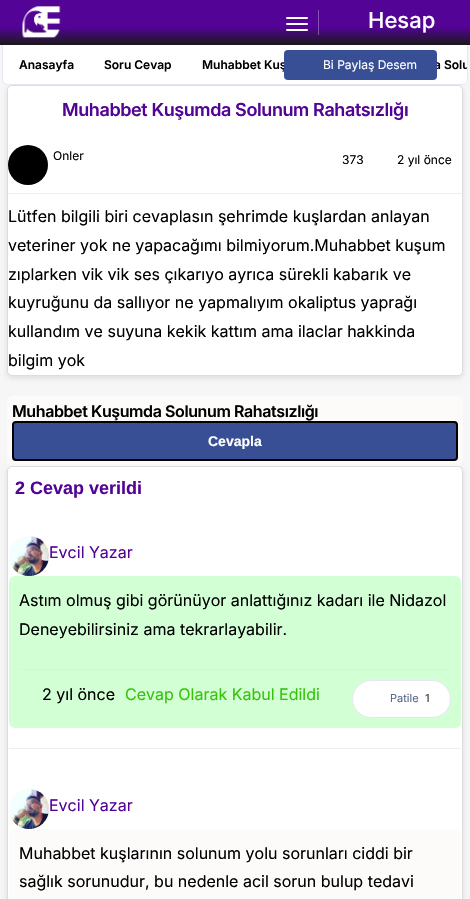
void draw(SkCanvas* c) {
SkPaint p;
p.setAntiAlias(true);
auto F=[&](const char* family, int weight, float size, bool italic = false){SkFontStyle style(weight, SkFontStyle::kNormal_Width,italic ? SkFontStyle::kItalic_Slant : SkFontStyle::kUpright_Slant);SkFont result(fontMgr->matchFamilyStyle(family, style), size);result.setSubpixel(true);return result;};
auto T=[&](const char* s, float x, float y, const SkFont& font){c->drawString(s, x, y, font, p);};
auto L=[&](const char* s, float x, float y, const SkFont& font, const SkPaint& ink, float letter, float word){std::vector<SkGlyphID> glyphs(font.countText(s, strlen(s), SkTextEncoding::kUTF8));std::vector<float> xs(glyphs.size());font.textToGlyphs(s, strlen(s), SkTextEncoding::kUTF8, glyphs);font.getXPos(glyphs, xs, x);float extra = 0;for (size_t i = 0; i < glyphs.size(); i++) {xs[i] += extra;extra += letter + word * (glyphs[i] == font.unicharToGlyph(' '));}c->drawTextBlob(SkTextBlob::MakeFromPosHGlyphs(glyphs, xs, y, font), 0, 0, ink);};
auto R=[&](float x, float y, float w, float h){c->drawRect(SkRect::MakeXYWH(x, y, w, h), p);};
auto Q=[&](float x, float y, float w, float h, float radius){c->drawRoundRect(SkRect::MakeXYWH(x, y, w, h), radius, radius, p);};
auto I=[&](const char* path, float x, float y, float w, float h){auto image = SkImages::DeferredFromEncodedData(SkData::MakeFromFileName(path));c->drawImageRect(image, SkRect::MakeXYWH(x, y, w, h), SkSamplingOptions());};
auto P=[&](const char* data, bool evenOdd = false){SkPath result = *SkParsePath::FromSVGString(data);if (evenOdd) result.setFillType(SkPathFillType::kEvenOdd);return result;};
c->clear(0xfff6f6f6);
{
const SkColor colors[] = {0xff530396,0xff191919};
const float stops[] = {.6,1};
const SkPoint ends[] = {{235,0}, {235,45}};
p.setShader(SkGradientShader::MakeLinear(ends, colors, stops, 2, SkTileMode::kClamp));
p.setAlpha(255);
}
R(0,0,470,45);
{
const SkColor colors[] = {0xff8851b7,0xff606060};
const float stops[] = {.6,1};
const SkPoint ends[] = {{235,0}, {235,45}};
p.setShader(SkGradientShader::MakeLinear(ends, colors, stops, 2, SkTileMode::kClamp));
p.setAlpha(255);
}
R(318,10,1,25);
I("1.png",22,6,43,32);
p.setShader(nullptr);
p.setColor(0xffffffff);
Q(286,17,22,2,1);
Q(286,23,22,2,1);
Q(286,29,22,2,1);
auto f1 = F("Inter",500,22);
T("Hesap",368,28,f1);
p.setColor(0x1a000000);
p.setMaskFilter(SkMaskFilter::MakeBlur(kNormal_SkBlurStyle, 2.5));
c->drawRoundRect(SkRect::MakeXYWH(7,87,456,291),5,5,p);
p.setMaskFilter(nullptr);
p.setColor(0xffffffff);
c->drawPath(P("M2 45h466v34c0 3.5-2.5 6-6 6h-454c-3.5 0-6-2.5-6-6z"),p);
p.setColor(0xffe5e7f2);
c->drawPath(P("M2 45h466v34c0 3-3 6-6 6h-454c-3 0-6-3-6-6zm1 0h464v34c0 3-2 5-5 5h-454c-3 0-5-2-5-5z",true),p);
auto f2 = F("Inter",600,12);
p.setColor(0xff000000);
T("Anasayfa",19,69,f2);
T("Soru Cevap",104,69,f2);
T("Muhabbet Kuş",202,69,f2);
c->save();
c->clipPath(P("M3 45h464v34c0 3-2 5-5 5h-454c-3 0-5-2-5-5z"),true);
T("a Solu",434,69,f2);
c->restore();
p.setColor(0xff384f95);
Q(284,50,153,30,4);
auto f3 = F("Inter",400,12);
p.setColor(0xffffffff);
T("Bi Paylaş Desem",323,69,f3);
c->drawRoundRect(SkRect::MakeXYWH(7.5,85.5,455,290),4.5,4.5,p);
p.setStroke(true);
p.setStrokeWidth(1);
p.setColor(0xffdddddd);
c->drawRoundRect(SkRect::MakeXYWH(7.5,85.5,455,290),4.5,4.5,p);
auto f4 = F("Inter",600,18);
p.setStroke(false);
p.setColor(0xff530396);
L("Muhabbet Kuşumda Solunum Rahatsızlığı",62,116,f4,p,-.4,0);
I("2.png",8,145,40,40);
p.setColor(0xff000000);
T("Onler",53,160,f3);
T("373",342,164,f3);
T("2 yıl önce",397,164,f3);
p.setColor(0xffeeeeee);
R(8,193,454,1);
auto f5 = F("Inter",400,16);
p.setColor(0xff000000);
T("Lütfen bilgili biri cevaplasın şehrimde kuşlardan anlayan",8,222,f5);
T("veteriner yok ne yapacağımı bilmiyorum.Muhabbet kuşum",8,251,f5);
T("zıplarken vik vik ses çıkarıyo ayrıca sürekli kabarık ve",8,280,f5);
T("kuyruğunu da sallıyor ne yapmalıyım okaliptus yaprağı",8,308,f5);
T("kullandım ve suyuna kekik kattım ama ilaclar hakkinda",8,337,f5);
T("bilgim yok",8,366,f5);
p.setColor(0xfffdfafa);
Q(7,396,456,70,6);
auto f6 = F("Inter",600,16);
p.setColor(0xff000000);
L("Muhabbet Kuşumda Solunum Rahatsızlığı",12,417,f6,p,-.4,0);
p.setColor(0xff384f95);
c->drawRoundRect(SkRect::MakeXYWH(13,422,444,38),3,3,p);
p.setStroke(true);
p.setStrokeWidth(2);
p.setColor(0xff000000);
c->drawRoundRect(SkRect::MakeXYWH(13,422,444,38),3,3,p);
auto f7 = F("Liberation Sans",700,14);
p.setStroke(false);
p.setColor(0xffffffff);
T("Cevapla",208,446,f7);
p.setColor(0x1a000000);
p.setMaskFilter(SkMaskFilter::MakeBlur(kNormal_SkBlurStyle, 2.5));
c->drawRoundRect(SkRect::MakeXYWH(7,468,456,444),5,5,p);
p.setMaskFilter(nullptr);
p.setColor(0xffffffff);
c->drawRoundRect(SkRect::MakeXYWH(7.5,466.5,455,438),4.5,4.5,p);
p.setStroke(true);
p.setStrokeWidth(1);
p.setColor(0xffdddddd);
c->drawRoundRect(SkRect::MakeXYWH(7.5,466.5,455,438),4.5,4.5,p);
auto f8 = F("Liberation Sans",700,18);
p.setStroke(false);
p.setColor(0xff530396);
T("2 Cevap verildi",15,494,f8);
p.setColor(0xffeeeeee);
R(9,748,452,1);
I("3.png",9,536,40,40);
p.setColor(0xff530396);
T("Evcil Yazar",49,558,f5);
p.setColor(0xffd3ffd5);
Q(9,576,452,152,6);
p.setColor(0xff000000);
T("Astım olmuş gibi görünüyor anlattığınız kadarı ile Nidazol",19,606,f5);
T("Deneyebilirsiniz ama tekrarlayabilir.",19,635,f5);
p.setColor(0xffe5e7f2);
R(19,669,432,1);
p.setColor(0xff000000);
T("2 yıl önce",42,700,f5);
p.setColor(0xff35c40a);
T("Cevap Olarak Kabul Edildi",125,700,f5);
p.setColor(0xffffffff);
c->drawRoundRect(SkRect::MakeXYWH(352.5,680.5,98,37),18.5,18.5,p);
p.setStroke(true);
p.setColor(0xffe5e7f2);
c->drawRoundRect(SkRect::MakeXYWH(352.5,680.5,98,37),18.5,18.5,p);
auto f9 = F("Inter",400,11);
p.setStroke(false);
p.setColor(0xff566985);
T("Patile",390,702,f9);
auto f10 = F("Inter",600,11);
p.setColor(0xff666666);
T("1",425,702,f10);
I("3.png",9,789,40,40);
p.setColor(0xff530396);
T("Evcil Yazar",49,811,f5);
p.setColor(0xfffdfafa);
Q(9,829,452,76,6);
p.setColor(0xff000000);
T("Muhabbet kuşlarının solunum yolu sorunları ciddi bir",19,859,f5);
T("sağlık sorunudur, bu nedenle acil sorun bulup tedavi",19,887,f5);
}
